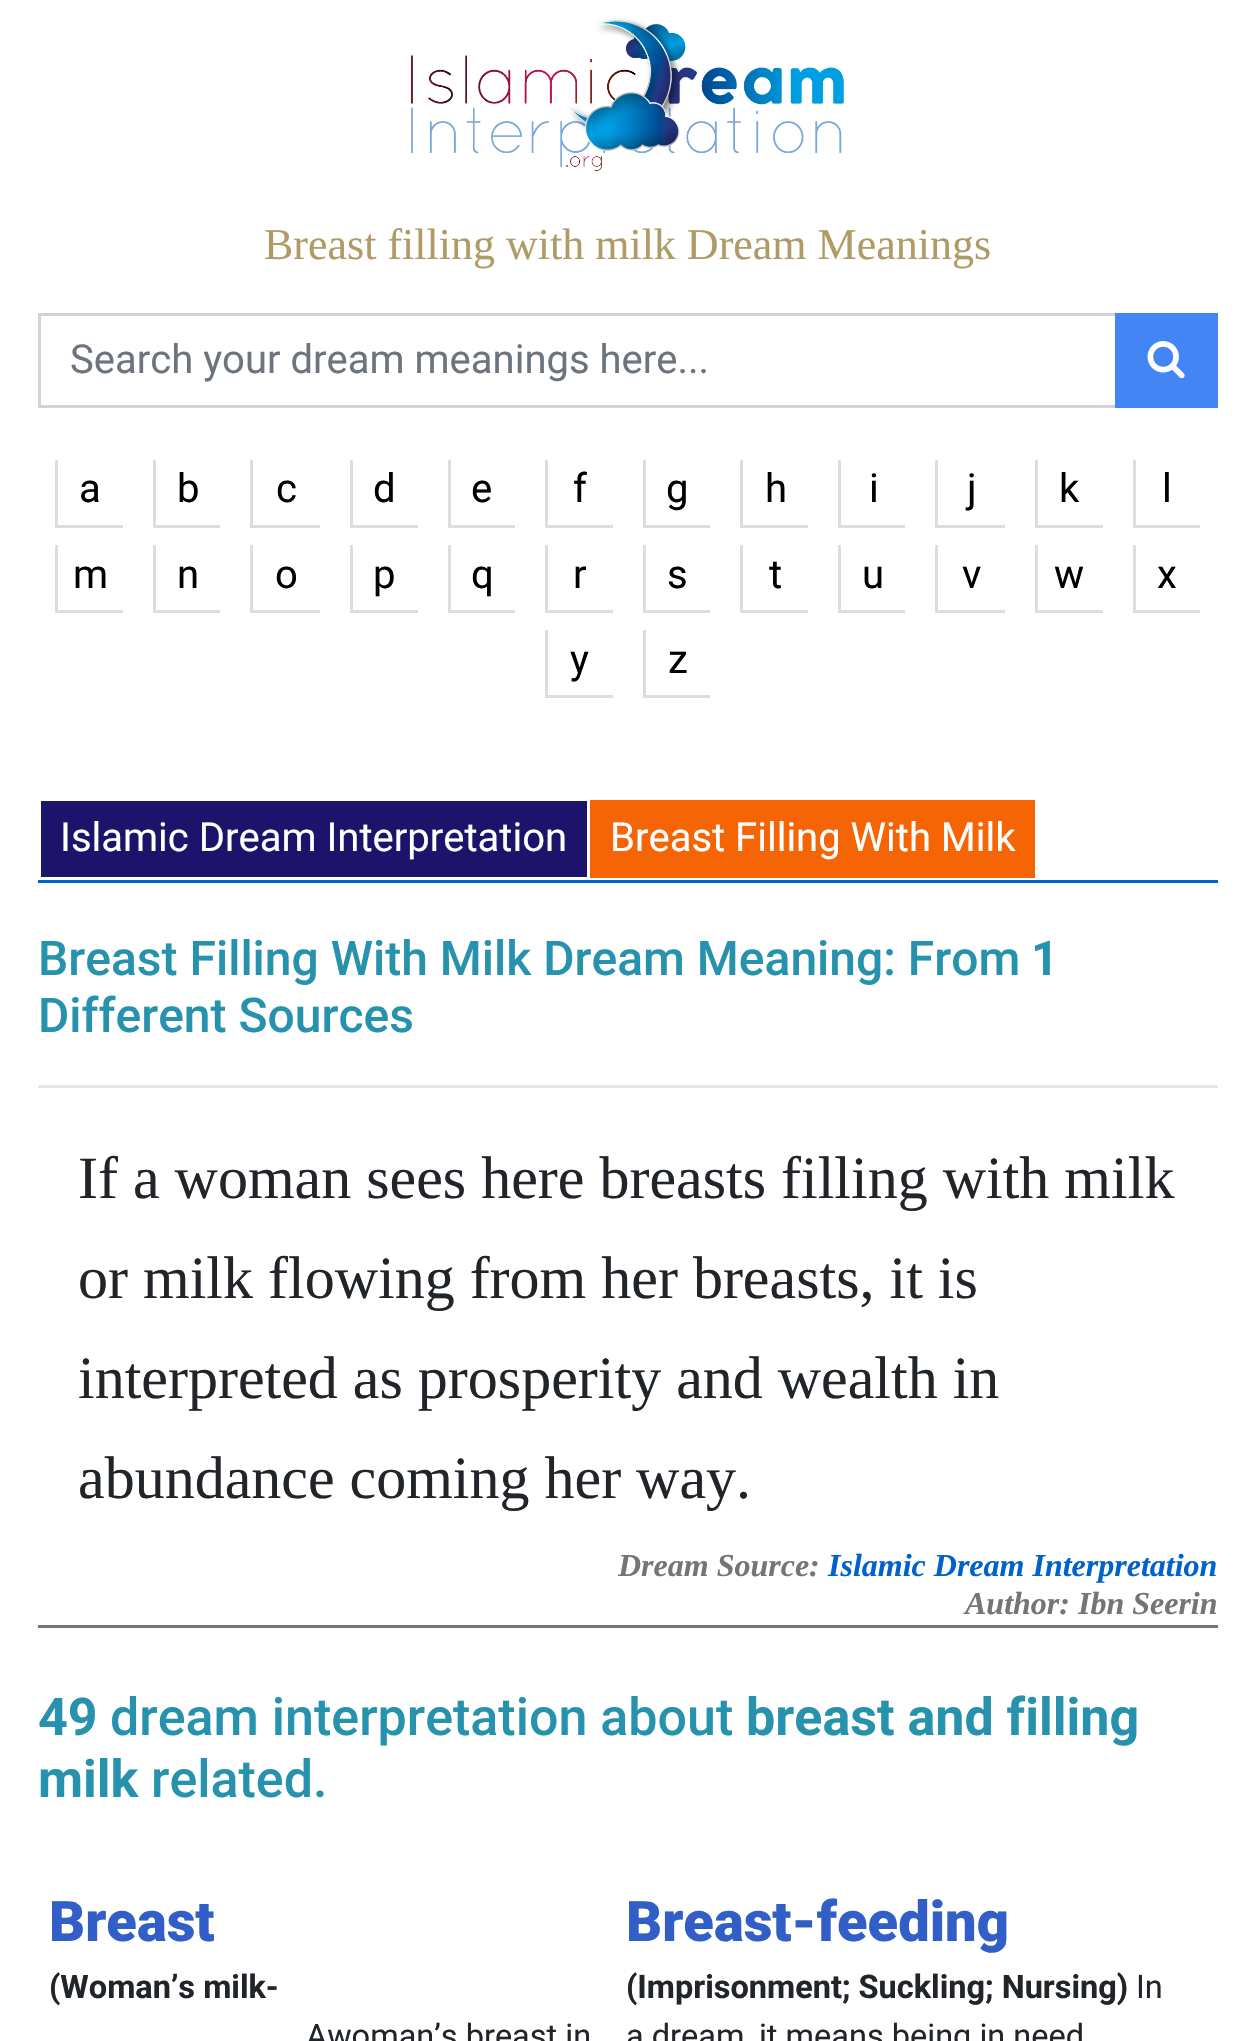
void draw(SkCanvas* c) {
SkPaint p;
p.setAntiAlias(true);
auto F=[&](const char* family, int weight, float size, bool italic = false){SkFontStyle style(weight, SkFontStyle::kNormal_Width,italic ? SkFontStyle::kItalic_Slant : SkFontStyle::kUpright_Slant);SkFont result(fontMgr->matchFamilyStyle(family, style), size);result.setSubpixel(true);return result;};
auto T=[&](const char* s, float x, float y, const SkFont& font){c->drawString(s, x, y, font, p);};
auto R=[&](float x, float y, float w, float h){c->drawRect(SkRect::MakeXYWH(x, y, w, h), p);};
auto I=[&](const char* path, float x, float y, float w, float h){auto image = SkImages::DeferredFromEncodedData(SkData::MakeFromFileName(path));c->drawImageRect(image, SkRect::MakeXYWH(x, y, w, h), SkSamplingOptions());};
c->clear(0xffffffff);
I("1.png",411,18,433,154);
auto f1 = F("Liberation Serif",400,44);
p.setColor(0xffaf9b66);
T("Breast filling with milk Dream Meanings",264,259,f1);
p.setStroke(true);
p.setStrokeWidth(3);
p.setColor(0xffced4da);
c->drawRect(SkRect::MakeXYWH(39.5,314.5,1077,92),p);
auto f2 = F("Roboto",400,40);
p.setStroke(false);
p.setColor(0xff6c757d);
T("Search your dream meanings here...",70,373,f2);
p.setColor(0xff4385f4);
R(1115,313,103,95);
I("2.png",1147,341,38,38);
p.setColor(0xffdddddd);
R(55,525,68,3);
R(55,460,3,68);
p.setColor(0xff000000);
T("a",79,502,f2);
p.setColor(0xffdddddd);
R(153,525,67,3);
R(153,460,3,68);
p.setColor(0xff000000);
T("b",177,502,f2);
p.setColor(0xffdddddd);
R(250,525,70,3);
R(250,460,3,68);
p.setColor(0xff000000);
T("c",276,502,f2);
p.setColor(0xffdddddd);
R(350,525,68,3);
R(350,460,3,68);
p.setColor(0xff000000);
T("d",373,502,f2);
p.setColor(0xffdddddd);
R(448,525,67,3);
R(448,460,3,68);
p.setColor(0xff000000);
T("e",471,502,f2);
p.setColor(0xffdddddd);
R(545,525,68,3);
R(545,460,3,68);
p.setColor(0xff000000);
T("f",573,502,f2);
p.setColor(0xffdddddd);
R(643,525,67,3);
R(643,460,3,68);
p.setColor(0xff000000);
T("g",666,502,f2);
p.setColor(0xffdddddd);
R(740,525,68,3);
R(740,460,3,68);
p.setColor(0xff000000);
T("h",765,502,f2);
p.setColor(0xffdddddd);
R(838,525,67,3);
R(838,460,3,68);
p.setColor(0xff000000);
T("i",869,502,f2);
p.setColor(0xffdddddd);
R(935,525,70,3);
R(935,460,3,68);
p.setColor(0xff000000);
T("j",967,502,f2);
p.setColor(0xffdddddd);
R(1035,525,68,3);
R(1035,460,3,68);
p.setColor(0xff000000);
T("k",1059,502,f2);
p.setColor(0xffdddddd);
R(1133,525,67,3);
R(1133,460,3,68);
p.setColor(0xff000000);
T("l",1162,502,f2);
p.setColor(0xffdddddd);
R(55,610,68,3);
R(55,545,3,68);
p.setColor(0xff000000);
T("m",73,588,f2);
p.setColor(0xffdddddd);
R(153,610,67,3);
R(153,545,3,68);
p.setColor(0xff000000);
T("n",177,588,f2);
p.setColor(0xffdddddd);
R(250,610,70,3);
R(250,545,3,68);
p.setColor(0xff000000);
T("o",275,588,f2);
p.setColor(0xffdddddd);
R(350,610,68,3);
R(350,545,3,68);
p.setColor(0xff000000);
T("p",373,588,f2);
p.setColor(0xffdddddd);
R(448,610,67,3);
R(448,545,3,68);
p.setColor(0xff000000);
T("q",471,588,f2);
p.setColor(0xffdddddd);
R(545,610,68,3);
R(545,545,3,68);
p.setColor(0xff000000);
T("r",573,588,f2);
p.setColor(0xffdddddd);
R(643,610,67,3);
R(643,545,3,68);
p.setColor(0xff000000);
T("s",667,588,f2);
p.setColor(0xffdddddd);
R(740,610,68,3);
R(740,545,3,68);
p.setColor(0xff000000);
T("t",769,588,f2);
p.setColor(0xffdddddd);
R(838,610,67,3);
R(838,545,3,68);
p.setColor(0xff000000);
T("u",862,588,f2);
p.setColor(0xffdddddd);
R(935,610,70,3);
R(935,545,3,68);
p.setColor(0xff000000);
T("v",962,588,f2);
p.setColor(0xffdddddd);
R(1035,610,68,3);
R(1035,545,3,68);
p.setColor(0xff000000);
T("w",1054,588,f2);
p.setColor(0xffdddddd);
R(1133,610,67,3);
R(1133,545,3,68);
p.setColor(0xff000000);
T("x",1157,588,f2);
p.setColor(0xffdddddd);
R(545,695,68,3);
R(545,630,3,68);
p.setColor(0xff000000);
T("y",570,673,f2);
p.setColor(0xffdddddd);
R(643,695,67,3);
R(643,630,3,68);
p.setColor(0xff000000);
T("z",668,673,f2);
p.setColor(0xff0062cc);
R(38,880,1180,3);
p.setColor(0xff1b146a);
R(41,801,546,76);
p.setColor(0xffffffff);
T("Islamic Dream Interpretation",60,851,f2);
p.setColor(0xfff56505);
R(590,800,445,78);
p.setColor(0xffffffff);
T("Breast Filling With Milk",610,851,f2);
auto f3 = F("Roboto",500,48);
p.setColor(0xff2792ad);
T("Breast Filling With Milk Dream Meaning: From",38,975,f3);
auto f4 = F("Roboto",700,48);
T("1",1031,975,f4);
T("Different Sources",38,1032,f3);
p.setColor(0xffe6e6e6);
R(38,1085,1180,3);
auto f5 = F("Liberation Serif",400,60);
p.setColor(0xff212529);
T("If a woman sees here breasts filling with milk",78,1198,f5);
T("or milk flowing from her breasts, it is",78,1298,f5);
T("interpreted as prosperity and wealth in",78,1398,f5);
T("abundance coming her way.",78,1498,f5);
p.setColor(0xff757575);
R(38,1625,1180,3);
auto f6 = F("Liberation Serif",700,32,true);
T("Dream Source:",618,1576,f6);
p.setColor(0xff0062cc);
T("Islamic Dream Interpretation",828,1576,f6);
p.setColor(0xff757575);
T("Author: Ibn Seerin",965,1614,f6);
auto f7 = F("Roboto",700,52);
p.setColor(0xff2792ad);
T("49",38,1735,f7);
auto f8 = F("Roboto",500,52);
T("dream interpretation about",110,1735,f8);
T("breast and filling",746,1735,f7);
T("milk",38,1797,f7);
T("related.",151,1797,f8);
auto f9 = F("Roboto",900,56);
p.setColor(0xff325ec7);
T("Breast",49,1941,f9);
auto f10 = F("Roboto",700,32.5);
p.setColor(0xff212529);
T("(Woman’s milk-",49,1998,f10);
auto f11 = F("Roboto",400,32.5);
T("Awoman’s breast in",306,2047,f11);
p.setColor(0xff325ec7);
T("Breast-feeding",626,1941,f9);
p.setColor(0xff212529);
T("(Imprisonment; Suckling; Nursing)",626,1998,f10);
T("In",1136,1998,f11);
T("a dream, it means being in need",626,2047,f11);
}
